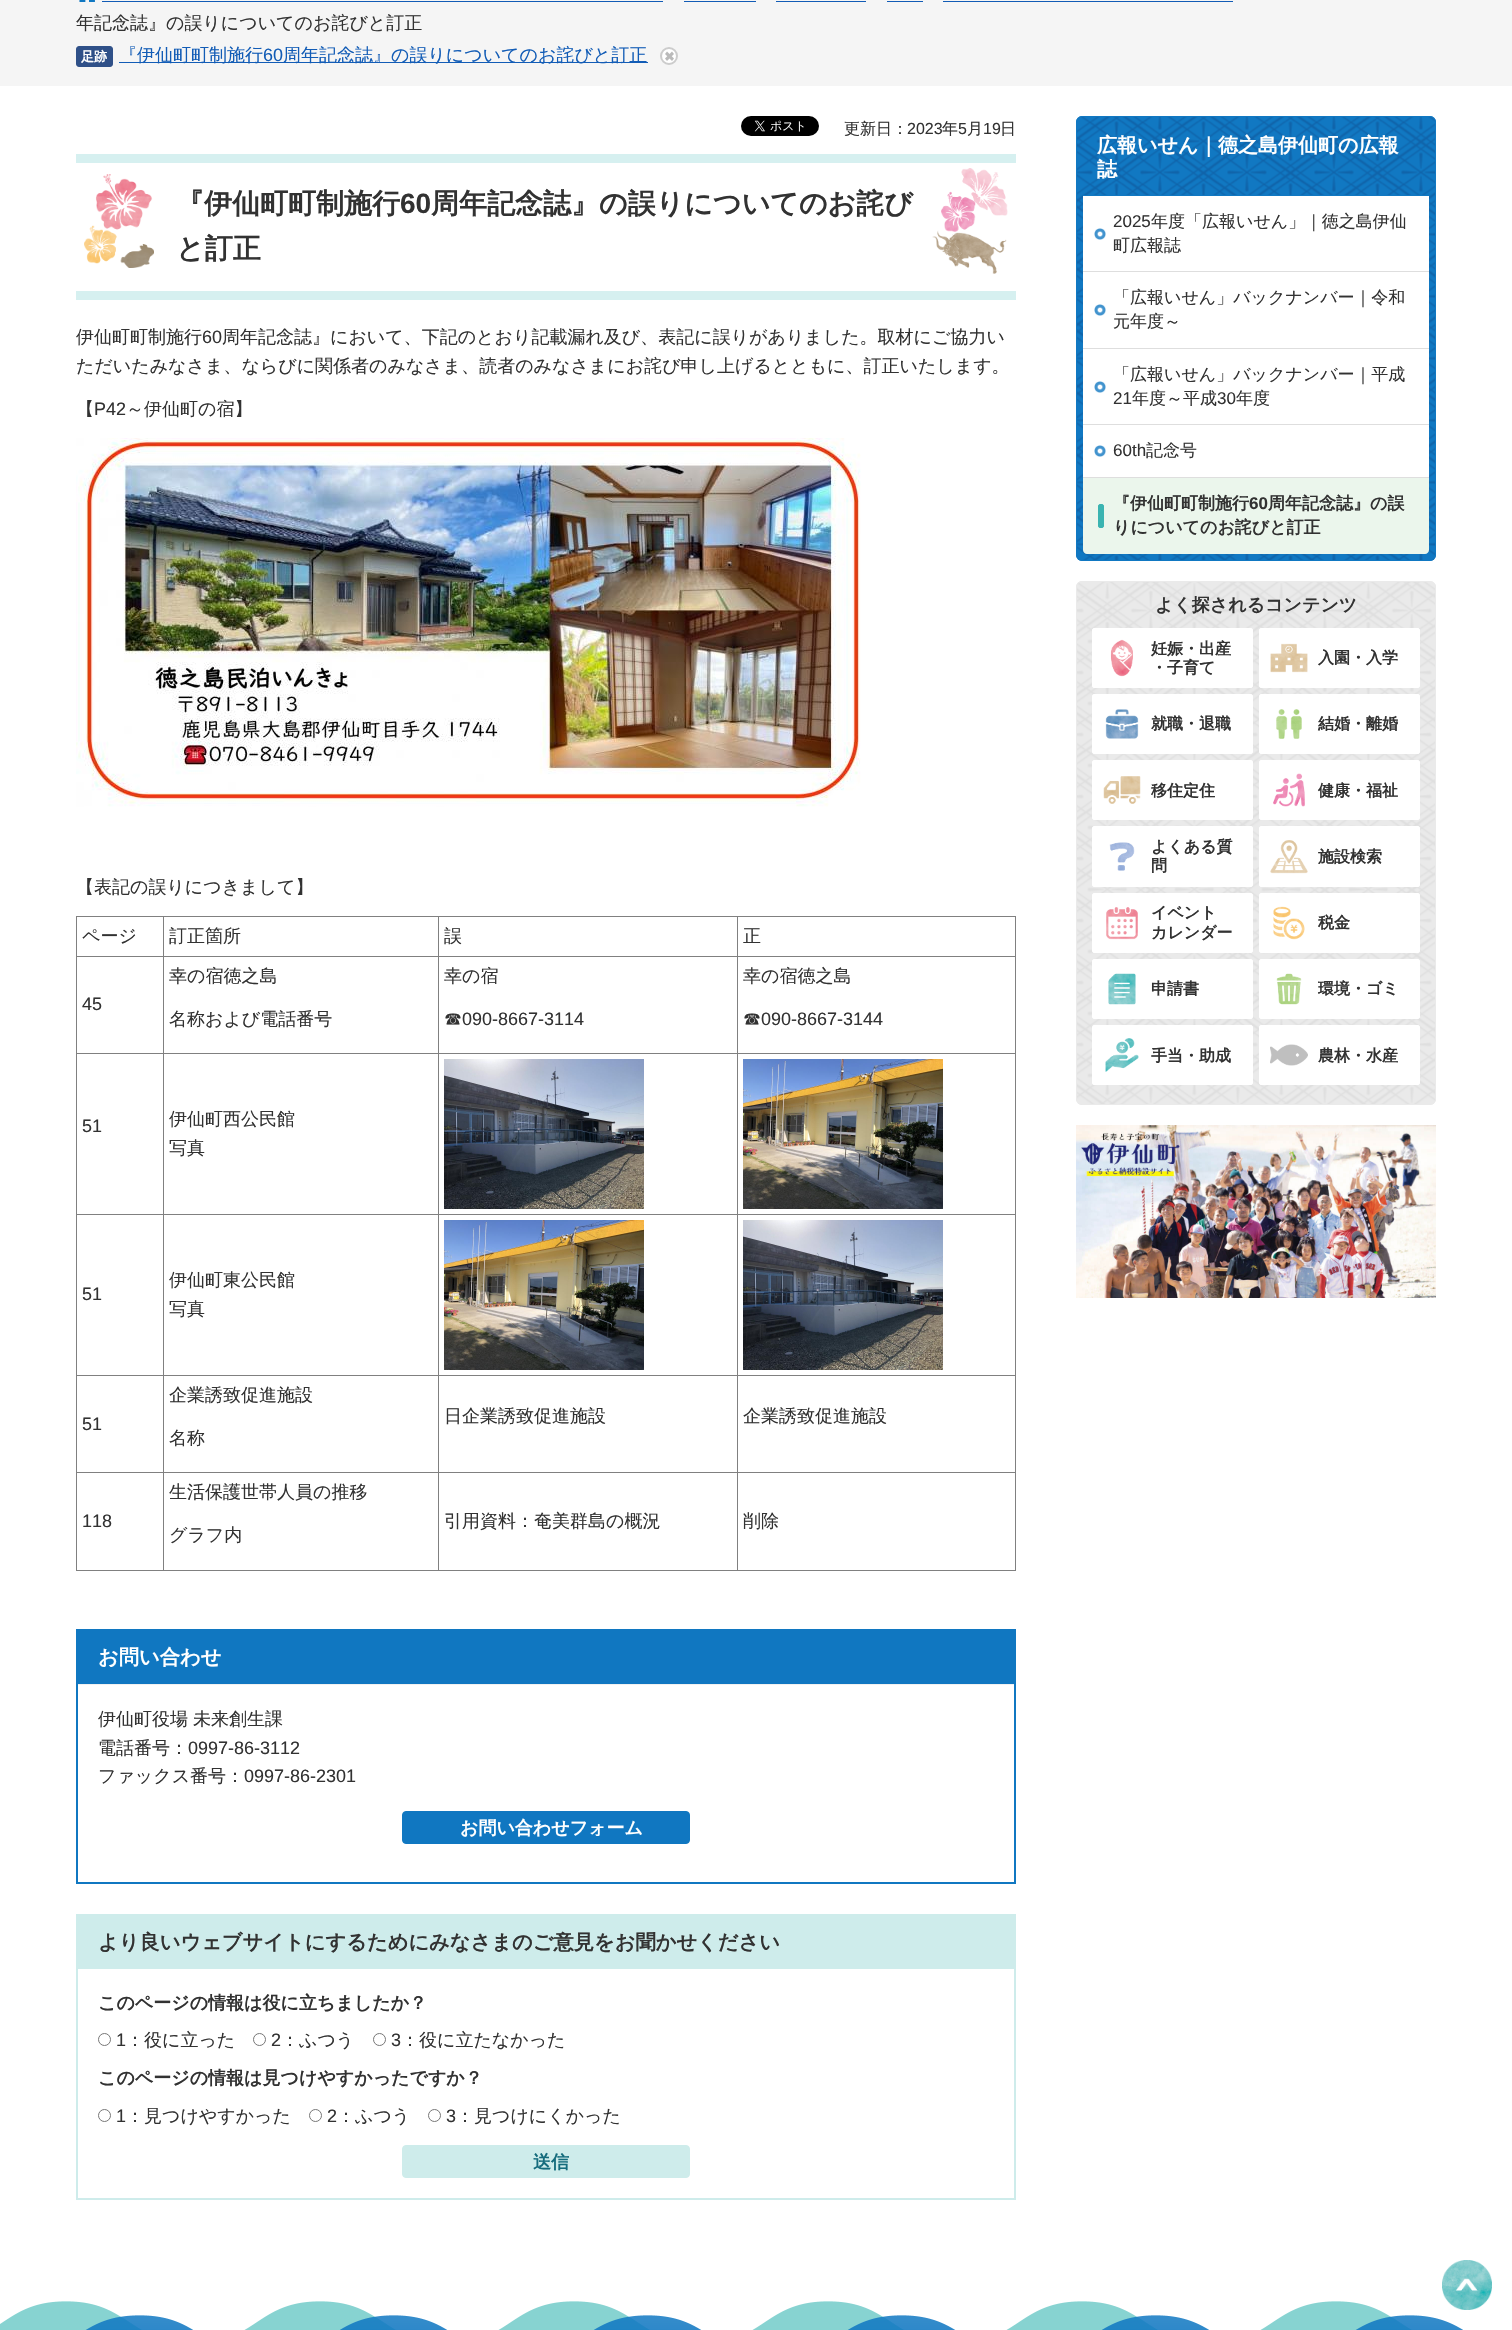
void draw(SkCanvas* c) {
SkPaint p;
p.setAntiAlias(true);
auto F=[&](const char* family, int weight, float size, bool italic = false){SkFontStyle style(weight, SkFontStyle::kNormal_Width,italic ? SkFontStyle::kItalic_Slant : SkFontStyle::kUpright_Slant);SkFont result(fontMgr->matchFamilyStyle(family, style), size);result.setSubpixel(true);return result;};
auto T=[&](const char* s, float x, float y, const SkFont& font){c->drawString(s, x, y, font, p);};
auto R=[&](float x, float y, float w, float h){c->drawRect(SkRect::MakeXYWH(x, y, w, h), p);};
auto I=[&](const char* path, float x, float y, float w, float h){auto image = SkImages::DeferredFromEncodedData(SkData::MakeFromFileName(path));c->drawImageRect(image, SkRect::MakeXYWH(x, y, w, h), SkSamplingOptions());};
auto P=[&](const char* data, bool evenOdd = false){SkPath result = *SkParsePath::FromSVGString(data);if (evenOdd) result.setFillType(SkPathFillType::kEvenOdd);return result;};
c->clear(0xffffffff);
p.setColor(0xfff5f5f5);
R(0,0,1512,86);
I("1.png",79,0,16,2);
p.setColor(0xff125cb6);
R(102,1,561,1);
R(684,1,72,1);
R(776,1,90,1);
R(887,1,36,1);
R(943,1,290,1);
auto f1 = F("WenQuanYi Zen Hei",500,18);
p.setColor(0xff323232);
T("年記念誌』の誤りについてのお詫びと訂正",76,29,f1);
p.setColor(0xff2f5088);
c->drawRoundRect(SkRect::MakeXYWH(76.5,46.5,36,20),2.5,2.5,p);
p.setStroke(true);
p.setStrokeWidth(1);
c->drawRoundRect(SkRect::MakeXYWH(76.5,46.5,36,20),2.5,2.5,p);
auto f2 = F("WenQuanYi Zen Hei",700,13);
p.setStroke(false);
p.setColor(0xffffffff);
T("足跡",81,61,f2);
p.setColor(0xff125cb6);
R(119,62,529,1);
T("『伊仙町町制施行",119,61,f1);
auto f3 = F("Liberation Sans",400,18);
T("60",263,61,f3);
T("周年記念誌』の誤りについてのお詫びと訂正",283,61,f1);
p.setColor(0xffffffff);
c->drawCircle(669,56,8,p);
p.setStroke(true);
p.setStrokeWidth(2);
p.setColor(0xffcccccc);
c->drawCircle(669,56,8,p);
p.setStroke(false);
p.setColor(0xffbababa);
c->drawPath(P("M674 58.5l-2 2.5l-7-7l2-2.5z"),p);
c->drawPath(P("M672 51.5l2 2.5l-7 7l-2-2.5z"),p);
I("2.png",741,116,78,20);
auto f4 = F("WenQuanYi Zen Hei",500,16);
p.setColor(0xff323232);
T("更新日：",844,134,f4);
auto f5 = F("Liberation Sans",400,16);
T("2023",907,134,f5);
T("年",942,134,f4);
T("5",958,134,f5);
T("月",967,134,f4);
T("19",983,134,f5);
T("日",1000,134,f4);
p.setColor(0xffd6f0f0);
R(76,154,940,9);
R(76,291,940,9);
I("3.png",84,174,70,94);
auto f6 = F("WenQuanYi Zen Hei",700,28);
p.setColor(0xff323232);
T("『伊仙町町制施行",176,213,f6);
auto f7 = F("Liberation Sans",700,28);
T("60",400,213,f7);
T("周年記念誌』の誤りについてのお詫び",431,213,f6);
I("4.png",932,168,76,106);
T("と訂正",176,258,f6);
T("伊仙町町制施行",76,343,f1);
T("60",202,343,f3);
T("周年記念誌』において、下記のとおり記載漏れ及び、表記に誤りがありました。取材にご協力い",222,343,f1);
T("ただいたみなさま、ならびに関係者のみなさま、読者のみなさまにお詫び申し上げるとともに、訂正いたします。",76,372,f1);
T("【",76,415,f1);
T("P42",94,415,f3);
T("～伊仙町の宿】",126,415,f1);
I("5.png",76,438,785,369);
T("【表記の誤りにつきまして】",76,893,f1);
p.setColor(0xff808080);
R(76,916,940,1);
R(1015,916,1,655);
R(76,1570,940,1);
R(76,916,1,655);
p.setColor(0xff323232);
T("ページ",82,942,f1);
p.setColor(0xff808080);
R(737,956,279,1);
R(737,1053,279,1);
R(737,1214,279,1);
R(737,1375,279,1);
R(737,1472,279,1);
R(737,1472,1,99);
R(438,1472,300,1);
R(737,1375,1,98);
R(438,1375,300,1);
R(737,1214,1,162);
R(438,1214,300,1);
R(737,1053,1,162);
R(438,1053,300,1);
R(737,956,1,98);
R(438,956,300,1);
R(438,1472,1,99);
R(163,1472,276,1);
R(438,1375,1,98);
R(163,1375,276,1);
R(438,1214,1,162);
R(163,1214,276,1);
R(438,1053,1,162);
R(163,1053,276,1);
R(438,956,1,98);
R(163,956,276,1);
R(163,1472,1,99);
R(76,1472,88,1);
R(163,1375,1,98);
R(76,1375,88,1);
R(163,1214,1,162);
R(76,1214,88,1);
R(163,1053,1,162);
R(76,1053,88,1);
R(163,956,1,98);
R(76,956,88,1);
R(163,916,1,41);
p.setColor(0xff323232);
T("訂正箇所",169,942,f1);
p.setColor(0xff808080);
R(438,916,1,41);
p.setColor(0xff323232);
T("誤",444,942,f1);
p.setColor(0xff808080);
R(737,916,1,41);
p.setColor(0xff323232);
T("正",743,942,f1);
T("45",82,1010,f3);
T("幸の宿徳之島",169,982,f1);
T("名称および電話番号",169,1025,f1);
T("幸の宿",444,982,f1);
T("☎",444,1025,f1);
T("090-8667-3114",462,1025,f3);
T("幸の宿徳之島",743,982,f1);
T("☎",743,1025,f1);
T("090-8667-3144",761,1025,f3);
T("51",82,1132,f3);
T("伊仙町西公民館",169,1125,f1);
T("写真",169,1154,f1);
I("6.png",444,1059,200,150);
I("7.png",743,1059,200,150);
T("51",82,1300,f3);
T("伊仙町東公民館",169,1286,f1);
T("写真",169,1315,f1);
I("7.png",444,1220,200,150);
I("6.png",743,1220,200,150);
T("51",82,1430,f3);
T("企業誘致促進施設",169,1401,f1);
T("名称",169,1444,f1);
T("日企業誘致促進施設",444,1422,f1);
T("企業誘致促進施設",743,1422,f1);
T("118",82,1527,f3);
T("生活保護世帯人員の推移",169,1498,f1);
T("グラフ内",169,1541,f1);
T("引用資料：奄美群島の概況",444,1527,f1);
T("削除",743,1527,f1);
p.setStroke(true);
p.setColor(0xff1077c1);
c->drawRect(SkRect::MakeXYWH(77,1630,938,253),p);
p.setStroke(false);
R(78,1631,936,53);
p.setColor(0xfff1f1f1);
R(78,1684,936,1);
auto f8 = F("WenQuanYi Zen Hei",700,20.25);
p.setColor(0xffffffff);
T("お問い合わせ",98,1664,f8);
p.setColor(0xff323232);
T("伊仙町役場",98,1725,f1);
T("未来創生課",193,1725,f1);
T("電話番号：",98,1754,f1);
T("0997-86-3112",188,1754,f3);
T("ファックス番号：",98,1782,f1);
T("0997-86-2301",244,1782,f3);
p.setColor(0xff1077c1);
c->drawRoundRect(SkRect::MakeXYWH(402.5,1811.5,287,32),3.5,3.5,p);
p.setStroke(true);
p.setStrokeWidth(1);
c->drawRoundRect(SkRect::MakeXYWH(402.5,1811.5,287,32),3.5,3.5,p);
auto f9 = F("WenQuanYi Zen Hei",700,18);
p.setStroke(false);
p.setColor(0xffffffff);
T("お問い合わせフォーム",460,1834,f9);
p.setStroke(true);
p.setStrokeWidth(2);
p.setColor(0xffceeceb);
c->drawRect(SkRect::MakeXYWH(77,1915,938,284),p);
p.setStroke(false);
R(78,1916,936,53);
p.setColor(0xff323232);
T("より良いウェブサイトにするためにみなさまのご意見をお聞かせください",98,1949,f8);
T("このページの情報は役に立ちましたか？",98,2009,f9);
p.setStroke(true);
p.setStrokeWidth(1);
p.setColor(0xff767676);
c->drawCircle(104.5,2039.5,6,p);
p.setStroke(false);
p.setColor(0xff323232);
T("1",116,2046,f3);
T("：役に立った",126,2046,f1);
p.setStroke(true);
p.setColor(0xff767676);
c->drawCircle(259.5,2039.5,6,p);
p.setStroke(false);
p.setColor(0xff323232);
T("2",271,2046,f3);
T("：ふつう",281,2046,f1);
p.setStroke(true);
p.setColor(0xff767676);
c->drawCircle(379.5,2039.5,6,p);
p.setStroke(false);
p.setColor(0xff323232);
T("3",391,2046,f3);
T("：役に立たなかった",401,2046,f1);
T("このページの情報は見つけやすかったですか？",98,2084,f9);
p.setStroke(true);
p.setColor(0xff767676);
c->drawCircle(104.5,2115.5,6,p);
p.setStroke(false);
p.setColor(0xff323232);
T("1",116,2122,f3);
T("：見つけやすかった",126,2122,f1);
p.setStroke(true);
p.setColor(0xff767676);
c->drawCircle(315.5,2115.5,6,p);
p.setStroke(false);
p.setColor(0xff323232);
T("2",327,2122,f3);
T("：ふつう",337,2122,f1);
p.setStroke(true);
p.setColor(0xff767676);
c->drawCircle(434.5,2115.5,6,p);
p.setStroke(false);
p.setColor(0xff323232);
T("3",446,2122,f3);
T("：見つけにくかった",456,2122,f1);
p.setColor(0xffceeceb);
c->drawRoundRect(SkRect::MakeXYWH(402.5,2145.5,287,32),3.5,3.5,p);
p.setStroke(true);
c->drawRoundRect(SkRect::MakeXYWH(402.5,2145.5,287,32),3.5,3.5,p);
p.setStroke(false);
p.setColor(0xff156c7d);
T("送信",533,2168,f9);
I("8.png",1076,116,360,445);
p.setStroke(true);
p.setColor(0xff1178c2);
c->drawRoundRect(SkRect::MakeXYWH(1076.5,116.5,359,444),5.5,5.5,p);
auto f10 = F("WenQuanYi Zen Hei",700,20);
p.setStroke(false);
p.setColor(0xffffffff);
T("広報いせん｜徳之島伊仙町の広報",1097,152,f10);
T("誌",1097,176,f10);
p.setColor(0xff1178c2);
R(1083,195,346,1);
p.setColor(0xffdedede);
R(1083,271,346,1);
p.setColor(0xffffffff);
R(1083,196,346,75);
I("9.png",1094,228,12,12);
auto f11 = F("Liberation Sans",400,17);
p.setColor(0xff323232);
T("2025",1113,227,f11);
auto f12 = F("WenQuanYi Zen Hei",500,17);
T("年度「広報いせん」｜徳之島伊仙",1151,227,f12);
T("町広報誌",1113,251,f12);
p.setColor(0xffdedede);
R(1083,348,346,1);
p.setColor(0xffffffff);
R(1083,272,346,76);
I("9.png",1094,304,12,12);
p.setColor(0xff323232);
T("「広報いせん」バックナンバー｜令和",1113,303,f12);
T("元年度～",1113,327,f12);
p.setColor(0xffdedede);
R(1083,424,346,1);
p.setColor(0xffffffff);
R(1083,349,346,75);
I("9.png",1094,381,12,12);
p.setColor(0xff323232);
T("「広報いせん」バックナンバー｜平成",1113,380,f12);
T("21",1113,404,f11);
T("年度～平成",1132,404,f12);
T("30",1217,404,f11);
T("年度",1236,404,f12);
p.setColor(0xffdedede);
R(1083,477,346,1);
p.setColor(0xffffffff);
R(1083,425,346,52);
I("9.png",1094,445,12,12);
p.setColor(0xff323232);
T("60th",1113,456,f11);
T("記念号",1146,456,f12);
p.setColor(0xffebf6ec);
c->drawPath(P("M1083 478h346v72c0 2-2 4-4 4h-338c-2 0-4-2-4-4z"),p);
p.setColor(0xff3ab4b1);
c->drawRoundRect(SkRect::MakeXYWH(1098.5,504.5,5,23),1.5,1.5,p);
p.setStroke(true);
c->drawRoundRect(SkRect::MakeXYWH(1098.5,504.5,5,23),1.5,1.5,p);
auto f13 = F("WenQuanYi Zen Hei",700,17);
p.setStroke(false);
p.setColor(0xff323232);
T("『伊仙町町制施行",1113,509,f13);
auto f14 = F("Liberation Sans",700,17);
T("60",1249,509,f14);
T("周年記念誌』の誤",1268,509,f13);
T("りについてのお詫びと訂正",1113,533,f13);
I("10.png",1076,581,360,524);
p.setStroke(true);
p.setColor(0xffeaeaea);
c->drawRoundRect(SkRect::MakeXYWH(1076.5,581.5,359,523),5.5,5.5,p);
p.setStroke(false);
p.setColor(0xff323232);
T("よく探されるコンテンツ",1155,611,f9);
p.setColor(0xffffffff);
c->drawRoundRect(SkRect::MakeXYWH(1092.5,628.5,160,59),1.5,1.5,p);
p.setStroke(true);
c->drawRoundRect(SkRect::MakeXYWH(1092.5,628.5,160,59),1.5,1.5,p);
I("11.png",1110,639,23,38);
auto f15 = F("WenQuanYi Zen Hei",700,16);
p.setStroke(false);
p.setColor(0xff323232);
T("妊娠・出産",1151,654,f15);
T("・子育て",1151,673,f15);
p.setColor(0xffffffff);
c->drawRoundRect(SkRect::MakeXYWH(1259.5,628.5,160,59),1.5,1.5,p);
p.setStroke(true);
c->drawRoundRect(SkRect::MakeXYWH(1259.5,628.5,160,59),1.5,1.5,p);
I("12.png",1270,643,38,30);
p.setStroke(false);
p.setColor(0xff323232);
T("入園・入学",1318,663,f15);
p.setColor(0xffffffff);
c->drawRoundRect(SkRect::MakeXYWH(1092.5,694.5,160,59),1.5,1.5,p);
p.setStroke(true);
c->drawRoundRect(SkRect::MakeXYWH(1092.5,694.5,160,59),1.5,1.5,p);
I("13.png",1105,709,34,30);
p.setStroke(false);
p.setColor(0xff323232);
T("就職・退職",1151,729,f15);
p.setColor(0xffffffff);
c->drawRoundRect(SkRect::MakeXYWH(1259.5,694.5,160,59),1.5,1.5,p);
p.setStroke(true);
c->drawRoundRect(SkRect::MakeXYWH(1259.5,694.5,160,59),1.5,1.5,p);
I("14.png",1276,709,26,30);
p.setStroke(false);
p.setColor(0xff323232);
T("結婚・離婚",1318,729,f15);
p.setColor(0xffffffff);
c->drawRoundRect(SkRect::MakeXYWH(1092.5,760.5,160,59),1.5,1.5,p);
p.setStroke(true);
c->drawRoundRect(SkRect::MakeXYWH(1092.5,760.5,160,59),1.5,1.5,p);
I("15.png",1103,776,38,28);
p.setStroke(false);
p.setColor(0xff323232);
T("移住定住",1151,796,f15);
p.setColor(0xffffffff);
c->drawRoundRect(SkRect::MakeXYWH(1259.5,760.5,160,59),1.5,1.5,p);
p.setStroke(true);
c->drawRoundRect(SkRect::MakeXYWH(1259.5,760.5,160,59),1.5,1.5,p);
I("16.png",1273,773,32,34);
p.setStroke(false);
p.setColor(0xff323232);
T("健康・福祉",1318,796,f15);
p.setColor(0xffffffff);
c->drawRoundRect(SkRect::MakeXYWH(1092.5,826.5,160,60),1.5,1.5,p);
p.setStroke(true);
c->drawRoundRect(SkRect::MakeXYWH(1092.5,826.5,160,60),1.5,1.5,p);
I("17.png",1109,842,26,29);
p.setStroke(false);
p.setColor(0xff323232);
T("よくある質",1151,852,f15);
T("問",1151,871,f15);
p.setColor(0xffffffff);
c->drawRoundRect(SkRect::MakeXYWH(1259.5,826.5,160,60),1.5,1.5,p);
p.setStroke(true);
c->drawRoundRect(SkRect::MakeXYWH(1259.5,826.5,160,60),1.5,1.5,p);
I("18.png",1270,840,38,34);
p.setStroke(false);
p.setColor(0xff323232);
T("施設検索",1318,862,f15);
p.setColor(0xffffffff);
c->drawRoundRect(SkRect::MakeXYWH(1092.5,893.5,160,59),1.5,1.5,p);
p.setStroke(true);
c->drawRoundRect(SkRect::MakeXYWH(1092.5,893.5,160,59),1.5,1.5,p);
I("19.png",1106,907,32,33);
p.setStroke(false);
p.setColor(0xff323232);
T("イベント",1151,918,f15);
T("カレンダー",1151,938,f15);
p.setColor(0xffffffff);
c->drawRoundRect(SkRect::MakeXYWH(1259.5,893.5,160,59),1.5,1.5,p);
p.setStroke(true);
c->drawRoundRect(SkRect::MakeXYWH(1259.5,893.5,160,59),1.5,1.5,p);
I("20.png",1273,906,32,34);
p.setStroke(false);
p.setColor(0xff323232);
T("税金",1318,928,f15);
p.setColor(0xffffffff);
c->drawRoundRect(SkRect::MakeXYWH(1092.5,959.5,160,59),1.5,1.5,p);
p.setStroke(true);
c->drawRoundRect(SkRect::MakeXYWH(1092.5,959.5,160,59),1.5,1.5,p);
I("21.png",1108,973,28,32);
p.setStroke(false);
p.setColor(0xff323232);
T("申請書",1151,994,f15);
p.setColor(0xffffffff);
c->drawRoundRect(SkRect::MakeXYWH(1259.5,959.5,160,59),1.5,1.5,p);
p.setStroke(true);
c->drawRoundRect(SkRect::MakeXYWH(1259.5,959.5,160,59),1.5,1.5,p);
I("22.png",1276,973,26,32);
p.setStroke(false);
p.setColor(0xff323232);
T("環境・ゴミ",1318,994,f15);
p.setColor(0xffffffff);
c->drawRoundRect(SkRect::MakeXYWH(1092.5,1025.5,160,59),1.5,1.5,p);
p.setStroke(true);
c->drawRoundRect(SkRect::MakeXYWH(1092.5,1025.5,160,59),1.5,1.5,p);
I("23.png",1105,1038,34,34);
p.setStroke(false);
p.setColor(0xff323232);
T("手当・助成",1151,1061,f15);
p.setColor(0xffffffff);
c->drawRoundRect(SkRect::MakeXYWH(1259.5,1025.5,160,59),1.5,1.5,p);
p.setStroke(true);
c->drawRoundRect(SkRect::MakeXYWH(1259.5,1025.5,160,59),1.5,1.5,p);
I("24.png",1270,1044,38,22);
p.setStroke(false);
p.setColor(0xff323232);
T("農林・水産",1318,1061,f15);
I("25.png",1076,1125,360,173);
I("27.png",0,2301,1463,29);
I("26.png",1442,2260,50,50);
}
